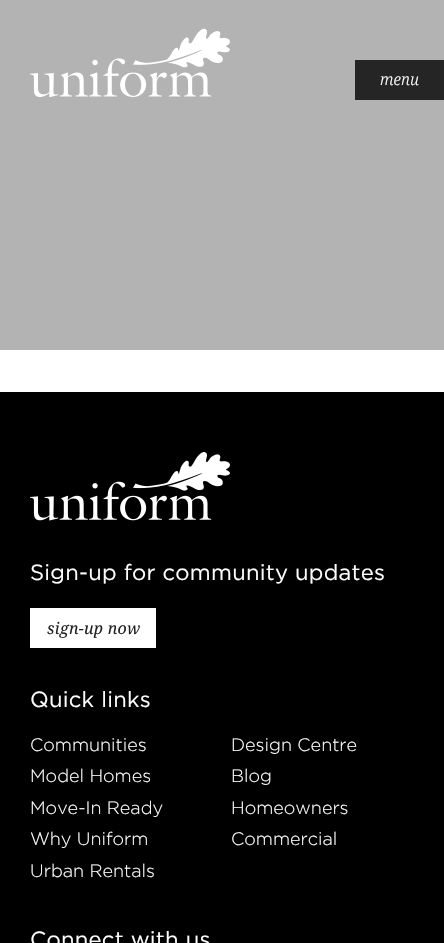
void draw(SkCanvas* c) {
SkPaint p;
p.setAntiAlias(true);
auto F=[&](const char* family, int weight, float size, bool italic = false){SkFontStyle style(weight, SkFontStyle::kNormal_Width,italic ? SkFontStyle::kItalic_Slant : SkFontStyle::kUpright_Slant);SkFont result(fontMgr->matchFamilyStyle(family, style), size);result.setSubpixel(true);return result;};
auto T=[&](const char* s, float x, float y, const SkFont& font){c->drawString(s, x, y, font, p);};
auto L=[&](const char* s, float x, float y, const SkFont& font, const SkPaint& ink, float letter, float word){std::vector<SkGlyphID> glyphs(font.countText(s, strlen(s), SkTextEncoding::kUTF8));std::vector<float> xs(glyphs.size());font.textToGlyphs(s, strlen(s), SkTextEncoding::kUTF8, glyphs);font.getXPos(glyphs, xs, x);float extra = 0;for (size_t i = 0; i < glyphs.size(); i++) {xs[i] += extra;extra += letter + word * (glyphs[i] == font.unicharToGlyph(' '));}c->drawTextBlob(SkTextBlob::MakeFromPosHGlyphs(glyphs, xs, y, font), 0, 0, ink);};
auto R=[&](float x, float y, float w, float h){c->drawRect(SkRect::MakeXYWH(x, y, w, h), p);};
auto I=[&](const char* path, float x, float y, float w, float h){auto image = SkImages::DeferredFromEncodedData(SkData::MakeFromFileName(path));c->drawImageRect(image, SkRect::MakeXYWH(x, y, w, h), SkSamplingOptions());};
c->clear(0xffffffff);
p.setColor(0xffb3b3b3);
R(0,0,444,350);
I("1.png",30,28,200,69);
p.setColor(0xff252525);
R(355,60,89,40);
auto f1 = F("Noto Serif",300,16,true);
p.setColor(0xffffffff);
T("menu",380,85,f1);
p.setColor(0xff000000);
R(0,392,444,551);
I("2.png",30,452,200,69);
auto f2 = F("Gotham",400,22);
p.setColor(0xffffffff);
L("Sign-up for community updates",30,580,f2,p,.25,0);
p.setStroke(true);
p.setStrokeWidth(2);
c->drawRect(SkRect::MakeXYWH(31,609,124,38),p);
p.setStroke(false);
R(32,610,122,36);
auto f3 = F("Noto Serif",400,16,true);
p.setColor(0xff222222);
L("sign-up now",47,634,f3,p,.25,0);
p.setColor(0xffffffff);
L("Quick links",30,707,f2,p,.25,0);
auto f4 = F("Gotham",300,18);
T("Communities",30,751,f4);
T("Design Centre",231,751,f4);
T("Model Homes",30,782,f4);
T("Blog",231,782,f4);
T("Move-In Ready",30,814,f4);
T("Homeowners",231,814,f4);
T("Why Uniform",30,845,f4);
T("Commercial",231,845,f4);
T("Urban Rentals",30,877,f4);
L("Connect with us",30,947,f2,p,.25,0);
}
